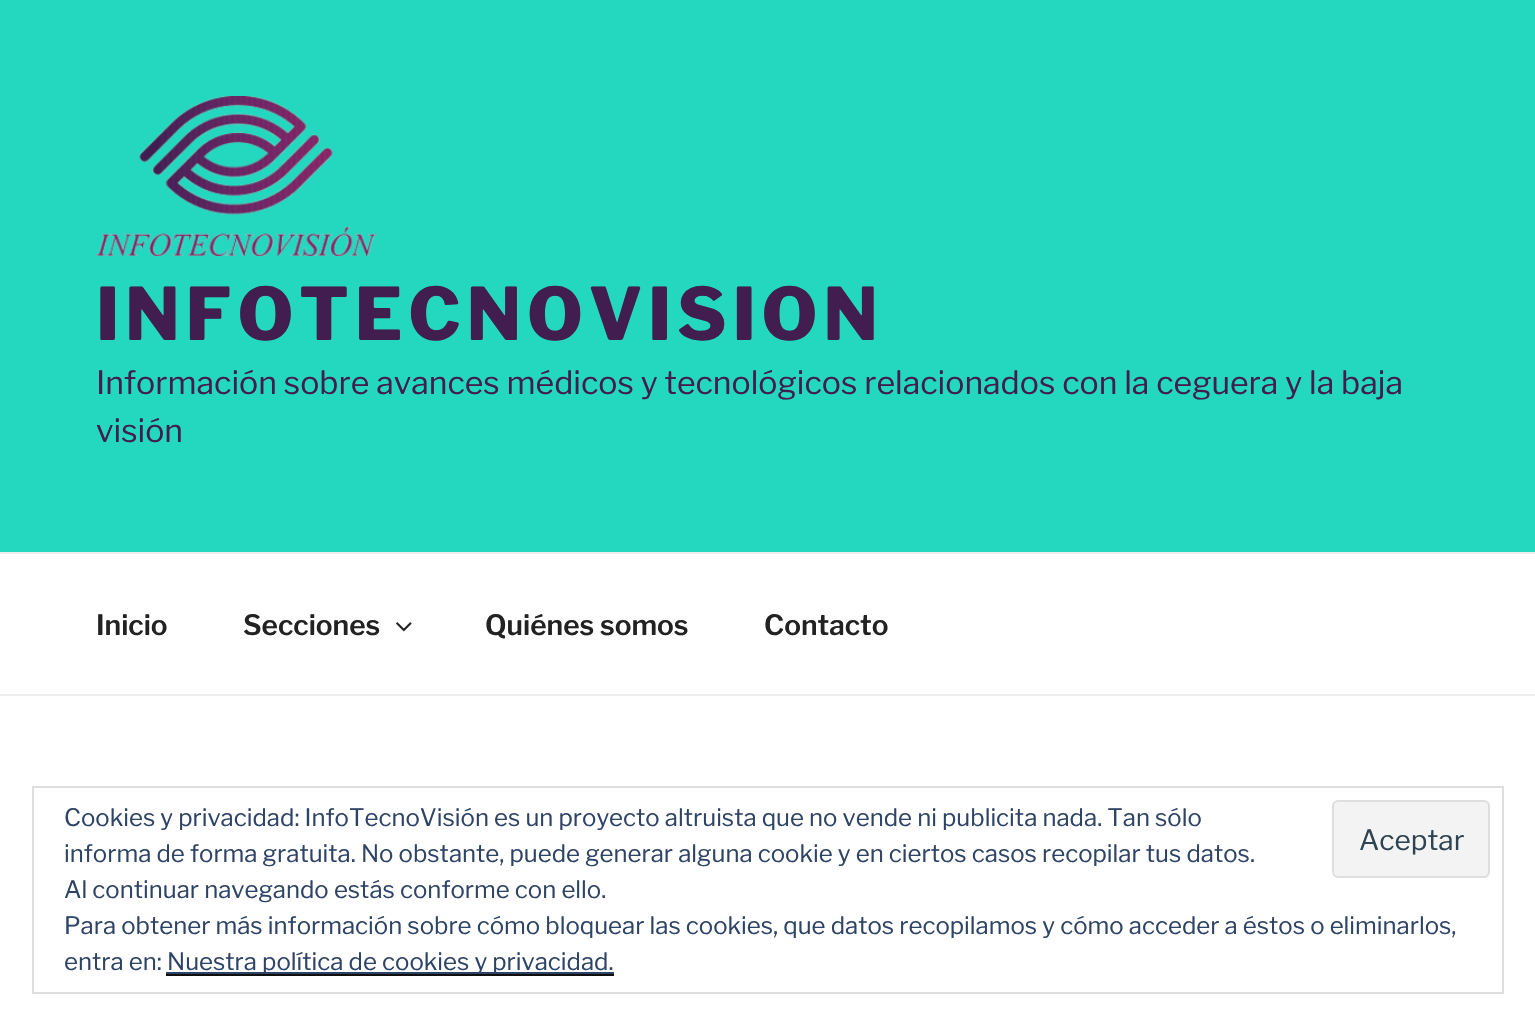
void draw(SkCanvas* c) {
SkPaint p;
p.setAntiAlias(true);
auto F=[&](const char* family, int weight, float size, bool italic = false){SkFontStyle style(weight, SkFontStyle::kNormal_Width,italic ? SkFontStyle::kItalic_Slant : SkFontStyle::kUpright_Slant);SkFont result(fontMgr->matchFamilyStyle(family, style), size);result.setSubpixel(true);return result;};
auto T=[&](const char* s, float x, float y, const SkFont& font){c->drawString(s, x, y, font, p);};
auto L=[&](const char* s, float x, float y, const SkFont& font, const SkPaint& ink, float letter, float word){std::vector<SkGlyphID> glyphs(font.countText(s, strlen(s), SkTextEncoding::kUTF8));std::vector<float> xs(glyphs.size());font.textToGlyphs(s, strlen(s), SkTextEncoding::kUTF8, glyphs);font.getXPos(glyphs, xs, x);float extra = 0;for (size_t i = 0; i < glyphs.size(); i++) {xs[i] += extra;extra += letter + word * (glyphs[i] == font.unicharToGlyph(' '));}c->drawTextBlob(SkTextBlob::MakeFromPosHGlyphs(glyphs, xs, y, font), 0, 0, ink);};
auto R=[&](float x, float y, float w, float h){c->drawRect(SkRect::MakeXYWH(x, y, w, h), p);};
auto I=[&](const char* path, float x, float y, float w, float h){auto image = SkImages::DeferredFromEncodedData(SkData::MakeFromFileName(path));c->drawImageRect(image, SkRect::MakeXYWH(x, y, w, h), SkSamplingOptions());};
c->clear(0xffffffff);
p.setColor(0xff24d8bf);
R(0,0,1535,552);
I("1.png",96,96,280,160);
auto f1 = F("Libre Franklin",100,72);
p.setColor(0xff421d50);
L("INFOTECNOVISION",96,340,f1,p,5.75,0);
auto f2 = F("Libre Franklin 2",100,32);
T("Información sobre avances médicos y tecnológicos relacionados con la ceguera y la baja",96,394,f2);
T("visión",96,442,f2);
p.setColor(0xffeeeeee);
R(0,552,1535,2);
R(0,694,1535,2);
auto f3 = F("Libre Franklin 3",100,28);
p.setColor(0xff222222);
T("Inicio",96,635,f3);
T("Secciones",243,635,f3);
I("2.png",396,622,16,10);
T("Quiénes somos",485,635,f3);
T("Contacto",764,635,f3);
p.setStroke(true);
p.setStrokeWidth(2);
p.setColor(0xffdedede);
c->drawRect(SkRect::MakeXYWH(33,787,1470,206),p);
auto f4 = F("Libre Franklin 2",100,24);
p.setStroke(false);
p.setColor(0xff2e4467);
T("Cookies y privacidad: InfoTecnoVisión es un proyecto altruista que no vende ni publicita nada. Tan sólo",64,826,f4);
T("informa de forma gratuita. No obstante, puede generar alguna cookie y en ciertos casos recopilar tus datos.",64,862,f4);
p.setColor(0xfff3f3f3);
c->drawRoundRect(SkRect::MakeXYWH(1333,801,156,76),5,5,p);
p.setStroke(true);
p.setColor(0xffdedede);
c->drawRoundRect(SkRect::MakeXYWH(1333,801,156,76),5,5,p);
auto f5 = F("Libre Franklin 2",100,28);
p.setStroke(false);
p.setColor(0xff2e4453);
T("Aceptar",1359,850,f5);
p.setColor(0xff2e4467);
T("Al continuar navegando estás conforme con ello.",64,898,f4);
T("Para obtener más información sobre cómo bloquear las cookies, que datos recopilamos y cómo acceder a éstos o eliminarlos,",64,934,f4);
T("entra en:",64,970,f4);
R(166,972,448,2);
T("Nuestra política de cookies y privacidad.",167,970,f4);
p.setColor(0xff0f0f0f);
R(166,974,448,2);
}
